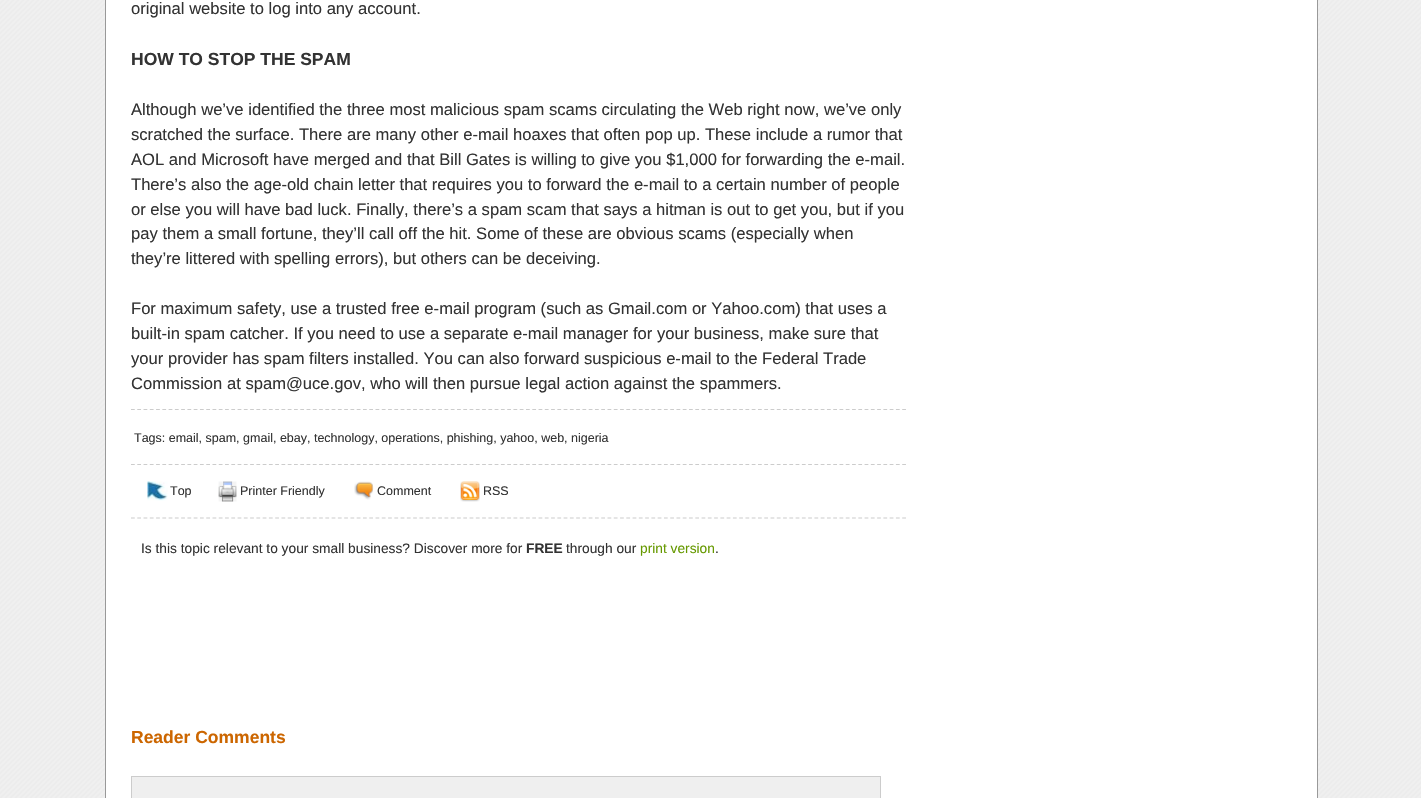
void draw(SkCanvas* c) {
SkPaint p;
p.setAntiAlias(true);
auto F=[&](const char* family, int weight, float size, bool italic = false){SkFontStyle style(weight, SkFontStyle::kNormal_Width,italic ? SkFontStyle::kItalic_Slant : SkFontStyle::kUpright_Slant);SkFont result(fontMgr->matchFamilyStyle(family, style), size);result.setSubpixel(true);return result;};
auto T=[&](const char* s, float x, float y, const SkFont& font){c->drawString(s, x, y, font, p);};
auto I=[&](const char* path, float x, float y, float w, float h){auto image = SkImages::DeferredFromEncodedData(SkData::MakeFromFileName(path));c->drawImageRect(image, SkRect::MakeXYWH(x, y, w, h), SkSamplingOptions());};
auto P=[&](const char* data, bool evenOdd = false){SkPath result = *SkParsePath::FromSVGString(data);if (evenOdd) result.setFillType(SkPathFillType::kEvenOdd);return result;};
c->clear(0xffffffff);
I("1.png",0,0,1421,798);
p.setColor(0xffffffff);
c->drawRect(SkRect::MakeXYWH(105.5,-.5,1212,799),p);
p.setStroke(true);
p.setStrokeWidth(1);
p.setColor(0xff999999);
c->drawRect(SkRect::MakeXYWH(105.5,-.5,1212,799),p);
auto f1 = F("Liberation Sans",400,16.6);
p.setStroke(false);
p.setColor(0xff333333);
T("original website to log into any account.",131,14,f1);
auto f2 = F("Liberation Sans",700,17.5);
T("HOW TO STOP THE SPAM",131,65,f2);
T("Although we’ve identified the three most malicious spam scams circulating the Web right now, we’ve only",131,115,f1);
T("scratched the surface. There are many other e-mail hoaxes that often pop up. These include a rumor that",131,140,f1);
T("AOL and Microsoft have merged and that Bill Gates is willing to give you $1,000 for forwarding the e-mail.",131,165,f1);
T("There’s also the age-old chain letter that requires you to forward the e-mail to a certain number of people",131,190,f1);
T("or else you will have bad luck. Finally, there’s a spam scam that says a hitman is out to get you, but if you",131,215,f1);
T("pay them a small fortune, they’ll call off the hit. Some of these are obvious scams (especially when",131,239,f1);
T("they’re littered with spelling errors), but others can be deceiving.",131,264,f1);
T("For maximum safety, use a trusted free e-mail program (such as Gmail.com or Yahoo.com) that uses a",131,314,f1);
T("built-in spam catcher. If you need to use a separate e-mail manager for your business, make sure that",131,339,f1);
T("your provider has spam filters installed. You can also forward suspicious e-mail to the Federal Trade",131,364,f1);
T("Commission at spam@uce.gov, who will then pursue legal action against the spammers.",131,389,f1);
p.setStroke(true);
p.setStrokeWidth(1.2);
p.setColor(0xffcccccc);
p.setPathEffect(SkDashPathEffect::Make({{3.75f,2.52f}}, 0));
c->drawPath(P("M131 409.5h775"),p);
p.setPathEffect(nullptr);
auto f3 = F("Liberation Sans",400,12.5);
p.setStroke(false);
p.setColor(0xff333333);
T("Tags: email, spam, gmail, ebay, technology, operations, phishing, yahoo, web, nigeria",134,442,f3);
p.setStroke(true);
p.setColor(0xffcccccc);
p.setPathEffect(SkDashPathEffect::Make({{3.75f,2.52f}}, 0));
c->drawPath(P("M131 464.5h775"),p);
p.setPathEffect(nullptr);
p.setPathEffect(SkDashPathEffect::Make({{3.75f,2.52f}}, 0));
c->drawPath(P("M131 518h775"),p);
p.setPathEffect(nullptr);
I("2.png",147,481,21,20);
p.setStroke(false);
p.setColor(0xff333333);
T("Top",170,495,f3);
I("3.png",218,481,19,21);
T("Printer Friendly",240,495,f3);
I("4.png",354,481,20,19);
T("Comment",377,495,f3);
I("5.png",460,481,20,21);
T("RSS",483,495,f3);
auto f4 = F("Liberation Sans",400,13.75);
T("Is this topic relevant to your small business? Discover more for",141,553,f4);
auto f5 = F("Liberation Sans",700,13.75);
T("FREE",526,553,f5);
T("through our",566,553,f4);
p.setColor(0xff669900);
T("print version",640,553,f4);
p.setColor(0xff333333);
T(".",715,553,f4);
p.setColor(0xffcc6600);
T("Reader Comments",131,743,f2);
p.setColor(0xffefefef);
c->drawRect(SkRect::MakeXYWH(131.5,776.5,749,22),p);
p.setStroke(true);
p.setStrokeWidth(1);
p.setColor(0xffcccccc);
c->drawRect(SkRect::MakeXYWH(131.5,776.5,749,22),p);
}
